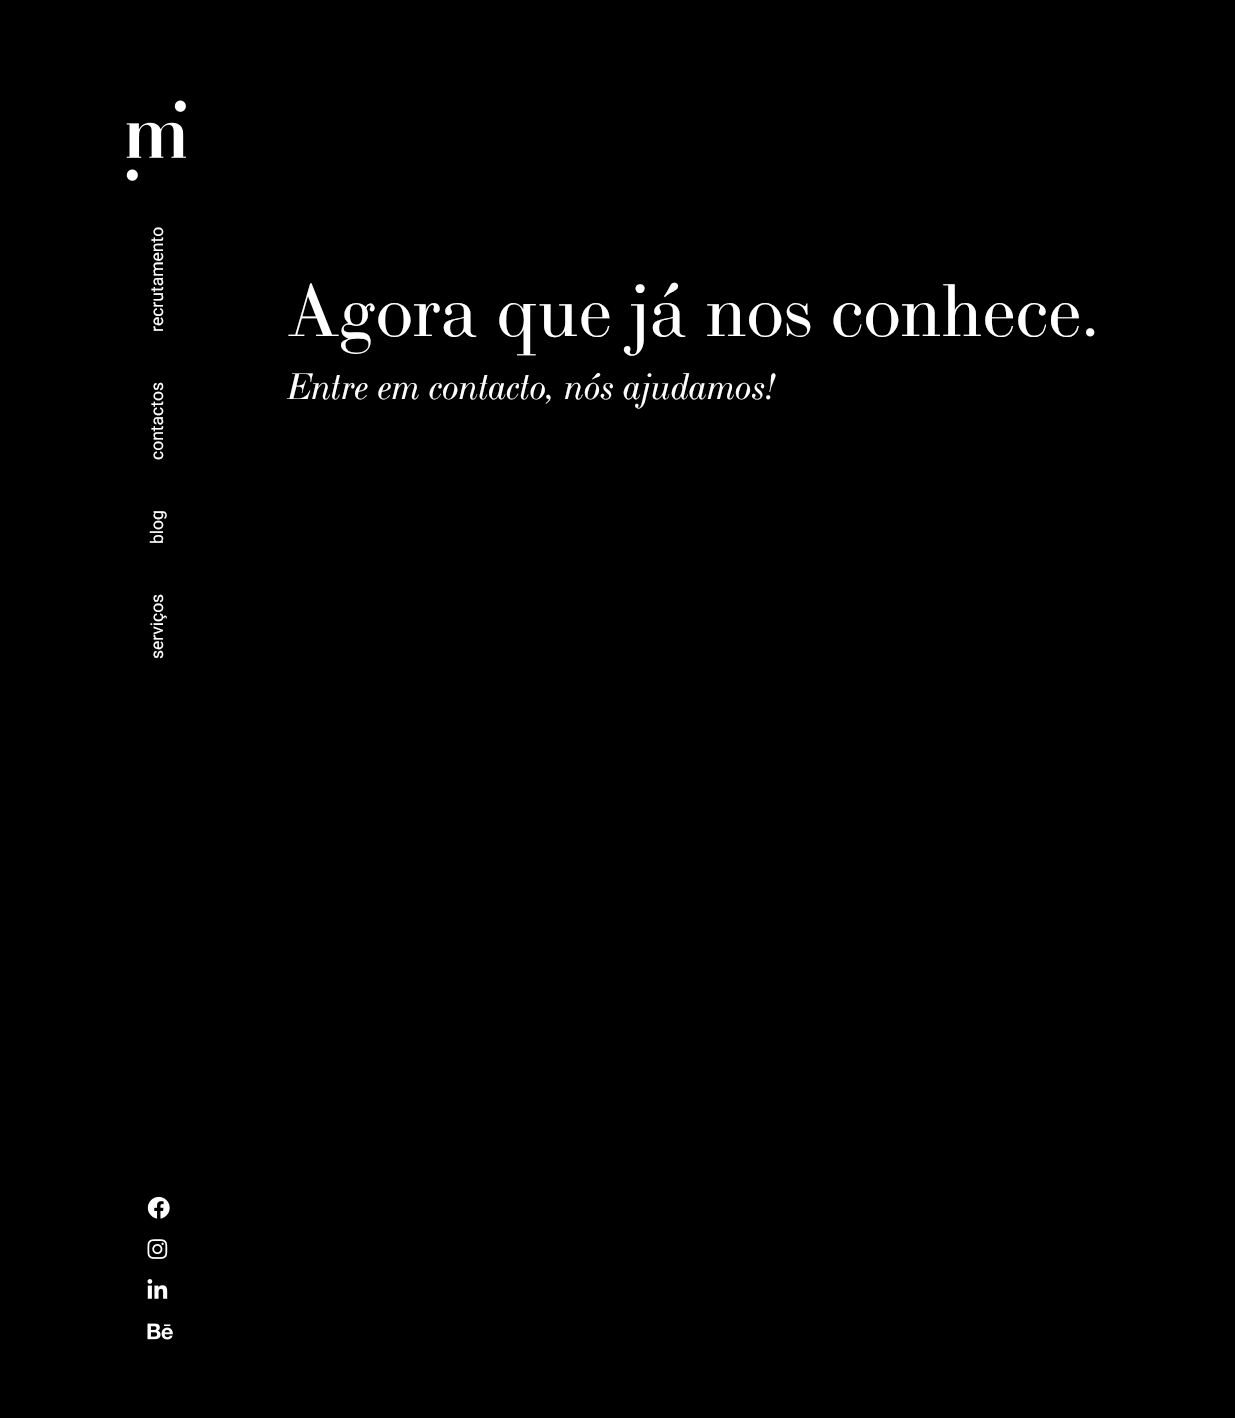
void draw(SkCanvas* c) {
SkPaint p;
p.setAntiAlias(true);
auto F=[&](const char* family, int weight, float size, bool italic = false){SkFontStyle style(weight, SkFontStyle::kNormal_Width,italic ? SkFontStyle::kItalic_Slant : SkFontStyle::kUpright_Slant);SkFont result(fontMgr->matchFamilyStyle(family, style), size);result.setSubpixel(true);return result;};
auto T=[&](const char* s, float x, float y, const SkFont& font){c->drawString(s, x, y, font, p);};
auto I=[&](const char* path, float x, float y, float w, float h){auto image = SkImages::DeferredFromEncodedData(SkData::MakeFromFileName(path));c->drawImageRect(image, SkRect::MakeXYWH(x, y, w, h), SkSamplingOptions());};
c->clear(0xff000000);
I("1.png",126,100,60,81);
auto f1 = F("Roboto",400,17.5);
p.setColor(0xffffffff);
c->save();
c->rotate(-90,163,332);
T("recrutamento",163,332,f1);
c->restore();
c->save();
c->rotate(-90,163,460);
T("contactos",163,460,f1);
c->restore();
c->save();
c->rotate(-90,163,544);
T("blog",163,544,f1);
c->restore();
c->save();
c->rotate(-90,163,659);
T("serviços",163,659,f1);
c->restore();
I("2.png",147,1196,23,23);
I("3.png",147,1239,21,20);
I("4.png",147,1279,21,20);
I("5.png",147,1323,26,17);
auto f2 = F("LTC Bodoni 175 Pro",400,73.75);
T("Agora que já nos conhece.",288,336,f2);
auto f3 = F("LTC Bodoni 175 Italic",400,36.25,true);
T("Entre em contacto, nós ajudamos!",288,399,f3);
}
